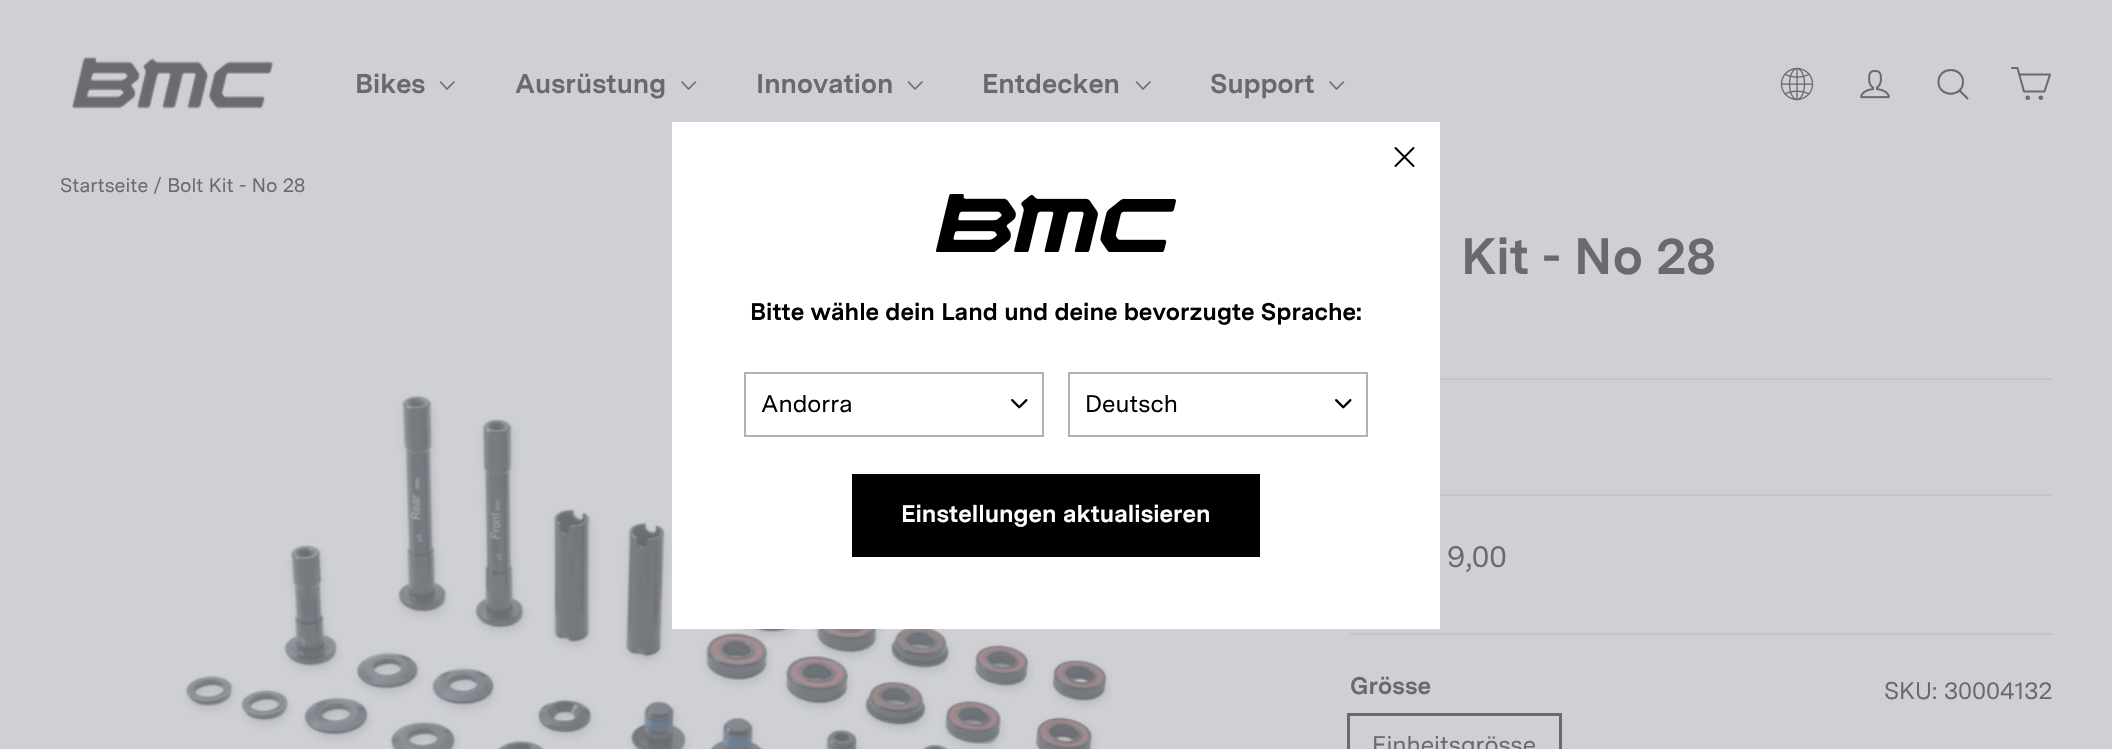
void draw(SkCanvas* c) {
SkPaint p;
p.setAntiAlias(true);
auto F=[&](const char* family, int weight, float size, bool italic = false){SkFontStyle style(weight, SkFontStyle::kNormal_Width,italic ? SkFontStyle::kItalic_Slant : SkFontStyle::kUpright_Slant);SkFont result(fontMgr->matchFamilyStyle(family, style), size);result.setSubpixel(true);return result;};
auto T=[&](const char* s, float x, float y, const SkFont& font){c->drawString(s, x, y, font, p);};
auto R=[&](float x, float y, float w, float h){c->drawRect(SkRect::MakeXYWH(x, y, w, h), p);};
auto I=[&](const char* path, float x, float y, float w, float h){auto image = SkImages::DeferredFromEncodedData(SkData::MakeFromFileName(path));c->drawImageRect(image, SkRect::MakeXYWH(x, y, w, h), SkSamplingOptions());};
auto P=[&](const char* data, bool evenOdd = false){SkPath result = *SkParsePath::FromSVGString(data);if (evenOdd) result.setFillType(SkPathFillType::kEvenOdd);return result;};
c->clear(0xffced0d4);
I("1.png",71,56,203,53);
auto f1 = F("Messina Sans",700,27);
p.setColor(0xff686a6e);
T("Bikes",355,93,f1);
p.setStroke(true);
p.setStrokeWidth(1.6);
p.setStrokeCap(SkPaint::kRound_Cap);
p.setStrokeJoin(SkPaint::kRound_Join);
c->drawPath(P("M440.5 82l6.5 7l7-7"),p);
p.setStroke(false);
T("Ausrüstung",515,93,f1);
p.setStroke(true);
c->drawPath(P("M682 82l6.5 7l7-7"),p);
p.setStroke(false);
T("Innovation",756,93,f1);
p.setStroke(true);
c->drawPath(P("M908.5 82l6.5 7l7-7"),p);
p.setStroke(false);
T("Entdecken",982,93,f1);
p.setStroke(true);
c->drawPath(P("M1136.5 82l6.5 7l7-7"),p);
p.setStroke(false);
T("Support",1210,93,f1);
p.setStroke(true);
c->drawPath(P("M1330 82l6.5 7l7-7"),p);
I("2.png",1780,67,34,34);
I("3.png",1860,69,30,30);
p.setStrokeWidth(2);
c->drawPath(P("M1963 82c0 15.5-24.5 15.5-24.5 0c0-16 24.5-16 24.5 0zm4.5 16.5l-8-8"),p);
c->drawPath(P("M2019 74.5h31l-5.5 17h-20.5l-6.5-23.5h-5.5"),p);
p.setStrokeCap(SkPaint::kButt_Cap);
p.setStrokeJoin(SkPaint::kMiter_Join);
c->drawCircle(2027.7,97.8,1.3,p);
c->drawCircle(2040.8,97.8,1.3,p);
auto f2 = F("Messina Sans",400,19.5);
p.setStroke(false);
T("Startseite / Bolt Kit - No 28",60,192,f2);
I("4.png",181,394,932,355);
auto f3 = F("Messina Sans",700,51);
T("Kit - No 28",1461,274,f3);
p.setColor(0xffc4c5ca);
R(1440,378,612,2);
R(1440,494,612,2);
auto f4 = F("Messina Sans",400,30);
p.setColor(0xff686a6e);
T("9,00",1447,567,f4);
p.setColor(0xffc4c5ca);
R(1350,633,702,2);
auto f5 = F("Messina Sans",700,24);
p.setColor(0xff686a6e);
T("Grösse",1350,694,f5);
auto f6 = F("Messina Sans",400,24);
T("SKU: 30004132",1884,699,f6);
p.setStroke(true);
p.setStrokeWidth(3);
c->drawRect(SkRect::MakeXYWH(1348.5,714.5,212,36),p);
p.setStroke(false);
T("Einheitsgrösse",1372,753,f6);
p.setColor(0xffffffff);
R(672,122,768,507);
I("5.png",936,194,240,58);
p.setColor(0xff000000);
T("Bitte wähle dein Land und deine bevorzugte Sprache:",750,320,f5);
p.setStroke(true);
p.setStrokeWidth(2);
p.setStrokeCap(SkPaint::kRound_Cap);
p.setStrokeJoin(SkPaint::kRound_Join);
c->drawPath(P("M1395.5 148l18 18m0-18l-18 18"),p);
I("6.png",1011,399,17,10);
p.setStrokeCap(SkPaint::kButt_Cap);
p.setStrokeJoin(SkPaint::kMiter_Join);
p.setColor(0xffaeb1b8);
c->drawRect(SkRect::MakeXYWH(745,373,298,63),p);
p.setStroke(false);
p.setColor(0xff000000);
T("Andorra",761,412,f6);
I("6.png",1335,399,17,10);
p.setStroke(true);
p.setColor(0xffaeb1b8);
c->drawRect(SkRect::MakeXYWH(1069,373,298,63),p);
p.setStroke(false);
p.setColor(0xff000000);
T("Deutsch",1085,412,f6);
{
const SkColor colors[] = {0xff000000,0xffffffff};
const float stops[] = {.5,.5};
const SkPoint ends[] = {{1023,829}, {396,202}};
p.setShader(SkGradientShader::MakeLinear(ends, colors, stops, 2, SkTileMode::kClamp));
p.setAlpha(255);
}
R(854,476,404,79);
p.setStroke(true);
p.setShader(nullptr);
p.setColor(0xff000000);
c->drawRect(SkRect::MakeXYWH(853,475,406,81),p);
p.setStroke(false);
p.setColor(0xffffffff);
T("Einstellungen aktualisieren",901,522,f5);
}
